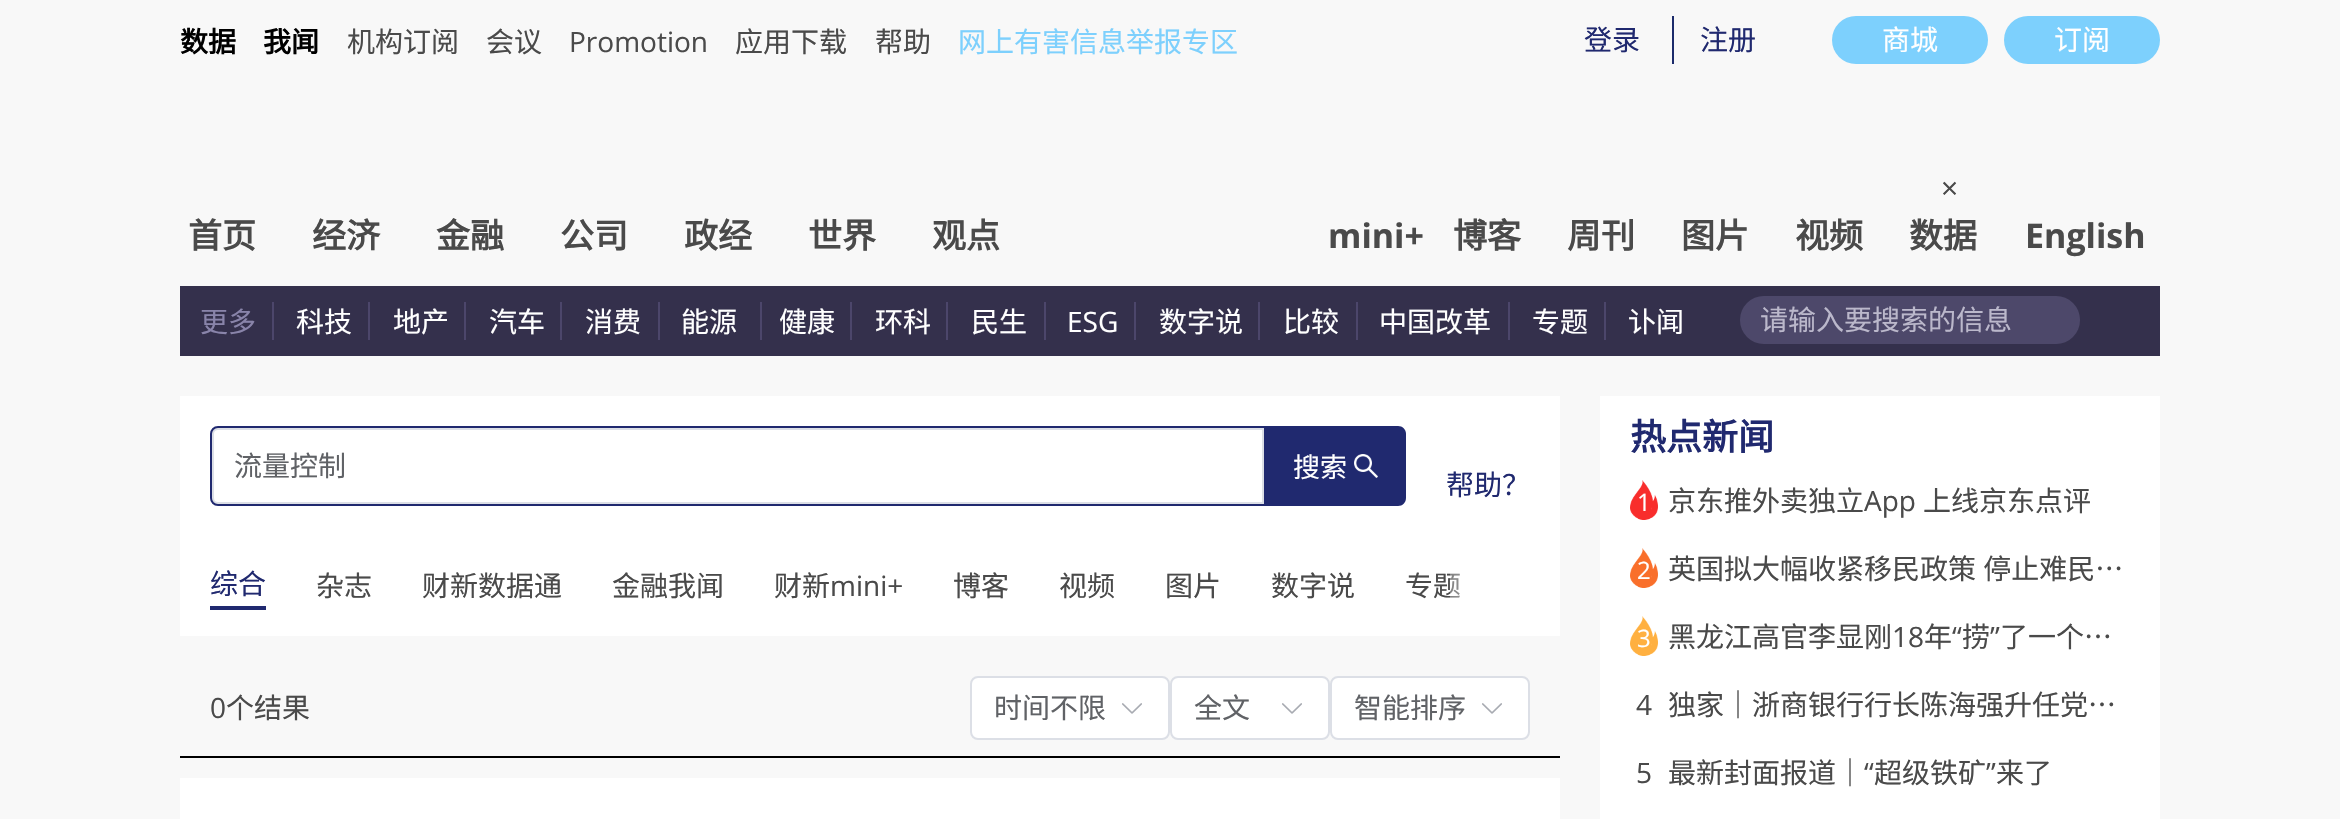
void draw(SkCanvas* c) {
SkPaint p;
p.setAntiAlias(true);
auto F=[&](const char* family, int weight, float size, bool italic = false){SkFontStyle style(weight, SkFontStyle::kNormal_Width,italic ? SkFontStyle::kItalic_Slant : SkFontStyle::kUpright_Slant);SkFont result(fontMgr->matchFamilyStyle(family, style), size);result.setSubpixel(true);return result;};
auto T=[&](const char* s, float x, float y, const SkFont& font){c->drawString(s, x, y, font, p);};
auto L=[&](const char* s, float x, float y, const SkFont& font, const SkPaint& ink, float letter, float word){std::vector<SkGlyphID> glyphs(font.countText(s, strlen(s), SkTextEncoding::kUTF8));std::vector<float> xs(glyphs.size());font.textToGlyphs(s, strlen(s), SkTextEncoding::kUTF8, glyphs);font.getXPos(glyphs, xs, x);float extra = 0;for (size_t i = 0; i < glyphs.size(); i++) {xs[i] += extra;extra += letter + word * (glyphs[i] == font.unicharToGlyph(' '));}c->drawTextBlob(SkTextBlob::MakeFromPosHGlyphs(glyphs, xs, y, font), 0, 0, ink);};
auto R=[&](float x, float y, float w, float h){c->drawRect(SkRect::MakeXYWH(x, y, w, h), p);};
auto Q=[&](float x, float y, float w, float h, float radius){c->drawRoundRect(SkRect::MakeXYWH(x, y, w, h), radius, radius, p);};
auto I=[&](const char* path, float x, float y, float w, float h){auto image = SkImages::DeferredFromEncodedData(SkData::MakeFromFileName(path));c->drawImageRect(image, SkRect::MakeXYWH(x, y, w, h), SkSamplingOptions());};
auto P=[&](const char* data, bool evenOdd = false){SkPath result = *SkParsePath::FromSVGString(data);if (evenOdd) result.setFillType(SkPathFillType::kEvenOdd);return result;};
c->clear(0xfff8f8f8);
auto f1 = F("Noto Sans CJK SC",700,28);
p.setColor(0xff000000);
T("数据",180,52,f1);
T("我闻",263,52,f1);
auto f2 = F("Noto Sans CJK SC",400,28);
p.setColor(0xff4a4a4a);
T("机构订阅",347,52,f2);
T("会议",486,52,f2);
auto f3 = F("Open Sans",400,28);
T("Promotion",569,52,f3);
T("应用下载",735,52,f2);
T("帮助",875,52,f2);
p.setColor(0xff7dd0fd);
T("网上有害信息举报专区",958,52,f2);
p.setColor(0xff20296f);
T("登录",1584,50,f2);
p.setColor(0xff1c2b6b);
R(1672,16,2,48);
p.setColor(0xff20296f);
T("注册",1700,50,f2);
p.setColor(0xff7dd0fd);
Q(1832,16,156,48,24);
p.setColor(0xffffffff);
T("商城",1882,50,f2);
p.setColor(0xff7dd0fd);
Q(2004,16,156,48,24);
p.setColor(0xffffffff);
T("订阅",2054,50,f2);
auto f4 = F("Noto Sans CJK SC",700,34);
p.setColor(0xff4a4a4a);
T("首页",188,248,f4);
T("经济",312,248,f4);
T("金融",436,248,f4);
T("公司",560,248,f4);
T("政经",684,248,f4);
T("世界",808,248,f4);
T("观点",932,248,f4);
auto f5 = F("Open Sans",700,34);
T("mini+",1328,248,f5);
T("博客",1453,248,f4);
T("周刊",1567,248,f4);
T("图片",1681,248,f4);
T("视频",1795,248,f4);
T("数据",1909,248,f4);
T("English",2025,248,f5);
p.setColor(0xff34304c);
R(180,286,1980,70);
p.setColor(0xff8984aa);
T("更多",200,332,f2);
p.setColor(0xff4c466b);
R(272,302,2,38);
p.setColor(0xffffffff);
T("科技",296,332,f2);
p.setColor(0xff4c466b);
R(368,302,2,38);
p.setColor(0xffffffff);
T("地产",393,332,f2);
p.setColor(0xff4c466b);
R(464,302,2,38);
p.setColor(0xffffffff);
T("汽车",489,332,f2);
p.setColor(0xff4c466b);
R(560,302,2,38);
p.setColor(0xffffffff);
T("消费",585,332,f2);
p.setColor(0xff4c466b);
R(658,302,2,38);
p.setColor(0xffffffff);
T("能源",681,332,f2);
p.setColor(0xff4c466b);
R(760,302,2,38);
p.setColor(0xffffffff);
T("健康",779,332,f2);
p.setColor(0xff4c466b);
R(850,302,2,38);
p.setColor(0xffffffff);
T("环科",875,332,f2);
p.setColor(0xff4c466b);
R(946,302,2,38);
p.setColor(0xffffffff);
T("民生",971,332,f2);
p.setColor(0xff4c466b);
R(1044,302,2,38);
p.setColor(0xffffffff);
T("ESG",1067,332,f3);
p.setColor(0xff4c466b);
R(1134,302,2,38);
p.setColor(0xffffffff);
T("数字说",1159,332,f2);
p.setColor(0xff4c466b);
R(1258,302,2,38);
p.setColor(0xffffffff);
T("比较",1283,332,f2);
p.setColor(0xff4c466b);
R(1356,302,2,38);
p.setColor(0xffffffff);
T("中国改革",1379,332,f2);
p.setColor(0xff4c466b);
R(1508,302,2,38);
p.setColor(0xffffffff);
T("专题",1532,332,f2);
p.setColor(0xff4c466b);
R(1604,302,2,38);
p.setColor(0xffffffff);
T("讣闻",1628,332,f2);
p.setColor(0xff4d486a);
Q(1740,296,340,48,24);
p.setColor(0xffbbb8cb);
T("请输入要搜索的信息",1760,330,f2);
p.setColor(0xffffffff);
R(180,396,1380,240);
p.setStroke(true);
p.setStrokeWidth(2);
p.setColor(0xffdcdfe6);
c->drawPath(P("M218 429h1045v74h-1045c-3 0-5-2-5-5v-64c0-3 2-5 5-5z"),p);
p.setColor(0xff20296f);
c->drawPath(P("M218 427h1047v78h-1047c-4 0-7-3-7-7v-64c0-4 3-7 7-7z"),p);
p.setStroke(false);
p.setColor(0xff606266);
T("流量控制",234,476,f2);
p.setColor(0xff20296f);
c->drawPath(P("M1266 426h132c4.5 0 8 3.5 8 8v64c0 4.5-3.5 8-8 8h-132z"),p);
auto f6 = F("Noto Sans CJK SC",400,27);
p.setColor(0xffffffff);
T("搜索",1293,477,f6);
I("1.png",1354,454,24,24);
p.setColor(0xff20296f);
T("帮助？",1446,495,f2);
R(210,606,56,4);
T("综合",210,594,f2);
p.setColor(0xff4a4a4a);
T("杂志",316,596,f2);
T("财新数据通",422,596,f2);
T("金融我闻",612,596,f2);
T("财新",774,596,f2);
T("mini+",830,596,f3);
T("博客",953,596,f2);
T("视频",1059,596,f2);
T("图片",1165,596,f2);
T("数字说",1271,596,f2);
T("专题",1405,596,f2);
{
const SkColor colors[] = {0x4dffffff,0xffffffff};
const float stops[] = {0,1};
const SkPoint ends[] = {{1450,586}, {1530,586}};
p.setShader(SkGradientShader::MakeLinear(ends, colors, stops, 2, SkTileMode::kClamp));
p.setAlpha(255);
}
R(1450,573,10,25);
p.setShader(nullptr);
p.setColor(0xff000000);
R(180,756,1380,2);
p.setColor(0xff4a4a4a);
T("0",210,718,f3);
T("个结果",226,718,f2);
p.setColor(0xffffffff);
c->drawRoundRect(SkRect::MakeXYWH(971,677,198,62),7,7,p);
p.setStroke(true);
p.setColor(0xffdcdfe6);
c->drawRoundRect(SkRect::MakeXYWH(971,677,198,62),7,7,p);
p.setStroke(false);
p.setColor(0xff606266);
T("时间不限",994,718,f2);
I("2.png",1122,703,20,11);
p.setColor(0xffffffff);
c->drawRoundRect(SkRect::MakeXYWH(1171,677,158,62),7,7,p);
p.setStroke(true);
p.setColor(0xffdcdfe6);
c->drawRoundRect(SkRect::MakeXYWH(1171,677,158,62),7,7,p);
p.setStroke(false);
p.setColor(0xff606266);
T("全文",1194,718,f2);
I("2.png",1282,703,20,11);
p.setColor(0xffffffff);
c->drawRoundRect(SkRect::MakeXYWH(1331,677,198,62),7,7,p);
p.setStroke(true);
p.setColor(0xffdcdfe6);
c->drawRoundRect(SkRect::MakeXYWH(1331,677,198,62),7,7,p);
p.setStroke(false);
p.setColor(0xff606266);
T("智能排序",1354,718,f2);
I("2.png",1482,703,20,11);
p.setColor(0xffffffff);
R(180,778,1380,41);
R(1600,396,560,423);
auto f7 = F("Noto Sans CJK SC",700,36);
p.setColor(0xff20296f);
T("热点新闻",1630,450,f7);
I("3.png",1630,480,28,40);
auto f8 = F("Open Sans",400,24);
p.setColor(0xffffffff);
T("1",1637,511,f8);
p.setColor(0xff4a4a4a);
T("京东推外卖独立",1668,511,f2);
T("App",1864,511,f3);
T("上线京东点评",1923,511,f2);
I("4.png",1630,548,28,40);
p.setColor(0xffffffff);
T("2",1637,579,f8);
p.setColor(0xff4a4a4a);
L("英国拟大幅收紧移民政策 停止难民…",1668,579,f2,p,0,1);
I("5.png",1630,616,28,40);
p.setColor(0xffffffff);
T("3",1637,647,f8);
p.setColor(0xff4a4a4a);
T("黑龙江高官李显刚",1668,647,f2);
T("18",1892,647,f3);
T("年",1924,647,f2);
T("“",1952,647,f3);
T("捞",1962,647,f2);
T("”",1990,647,f3);
L("了一个…",2000,647,f2,p,0,1);
T("4",1636,715,f3);
T("独家｜浙商银行行长陈海强升任党…",1668,715,f2);
T("5",1636,783,f3);
T("最新封面报道｜",1668,783,f2);
T("“",1864,783,f3);
T("超级铁矿",1874,783,f2);
T("”",1986,783,f3);
T("来了",1996,783,f2);
auto f9 = F("Open Sans",400,30);
T("×",1941,199,f9);
}
